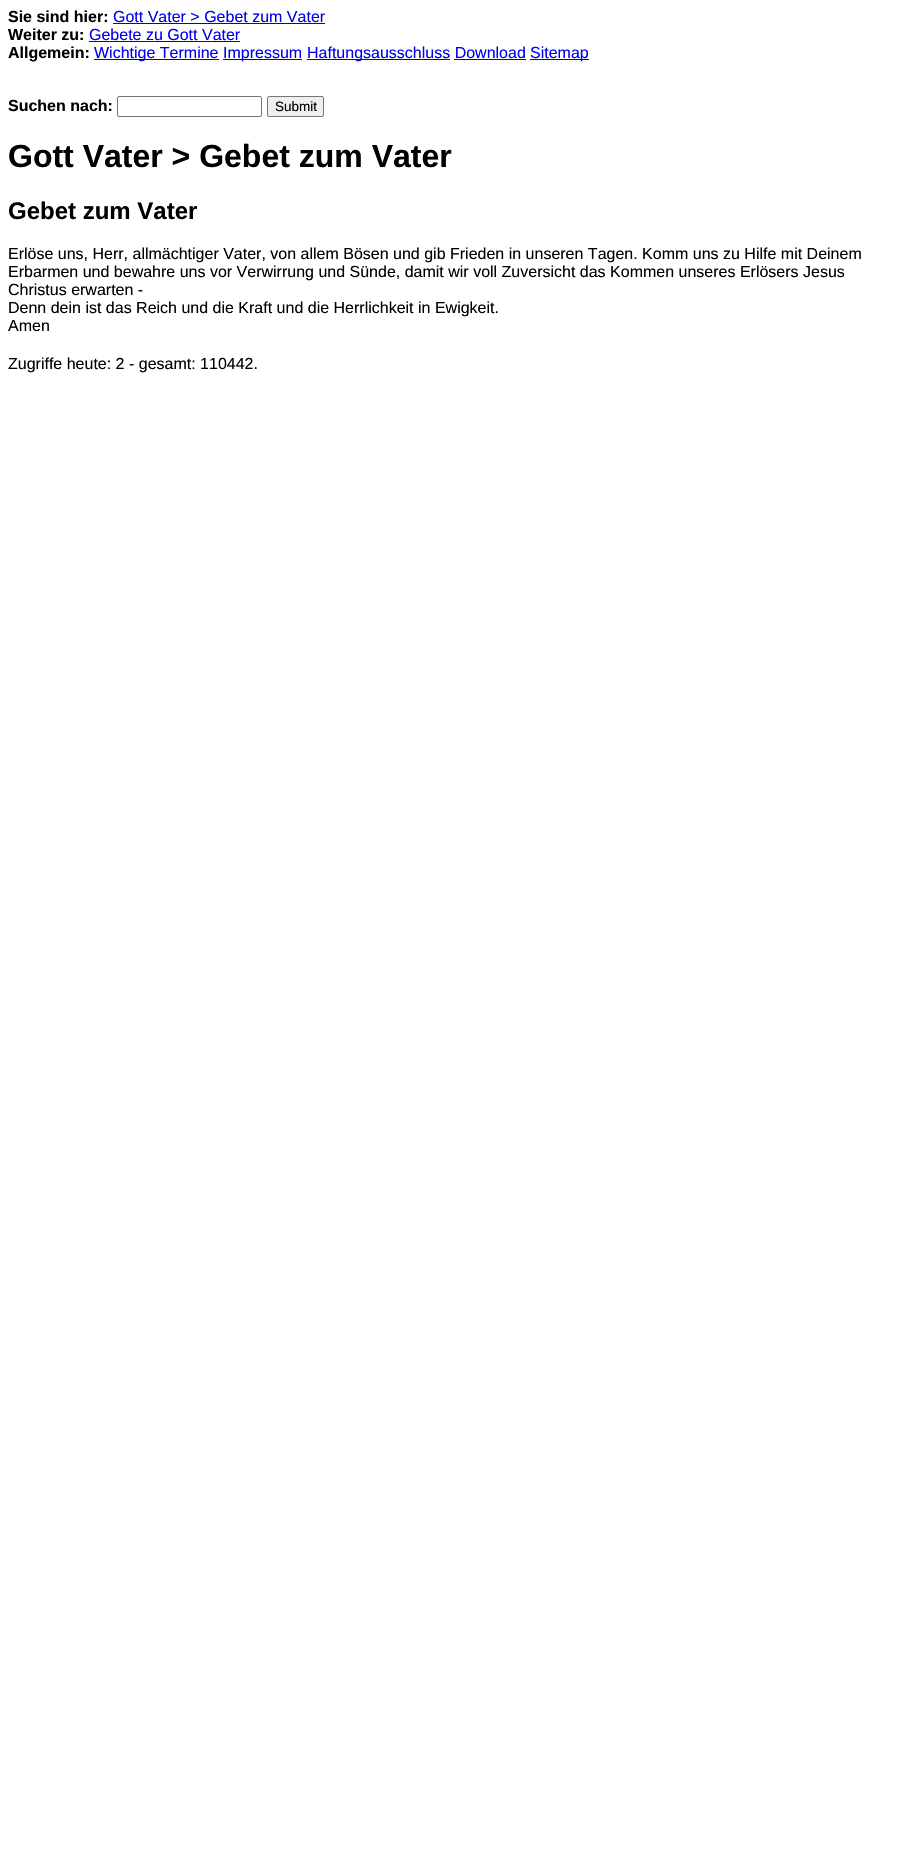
void draw(SkCanvas* c) {
SkPaint p;
p.setAntiAlias(true);
auto F=[&](const char* family, int weight, float size, bool italic = false){SkFontStyle style(weight, SkFontStyle::kNormal_Width,italic ? SkFontStyle::kItalic_Slant : SkFontStyle::kUpright_Slant);SkFont result(fontMgr->matchFamilyStyle(family, style), size);result.setSubpixel(true);return result;};
auto T=[&](const char* s, float x, float y, const SkFont& font){c->drawString(s, x, y, font, p);};
auto R=[&](float x, float y, float w, float h){c->drawRect(SkRect::MakeXYWH(x, y, w, h), p);};
c->clear(0xffffffff);
auto f1 = F("Liberation Sans",700,16);
p.setColor(0xff000000);
T("Sie sind hier:",8,22,f1);
auto f2 = F("Liberation Sans",400,16);
p.setColor(0xff0000ee);
T("Gott Vater > Gebet zum Vater",113,22,f2);
R(113,23,212,1);
p.setColor(0xff000000);
T("Weiter zu:",8,40,f1);
p.setColor(0xff0000ee);
T("Gebete zu Gott Vater",89,40,f2);
R(89,41,151,1);
p.setColor(0xff000000);
T("Allgemein:",8,58,f1);
p.setColor(0xff0000ee);
R(94,59,125,1);
T("Wichtige Termine",94,58,f2);
R(223,59,79,1);
T("Impressum",223,58,f2);
R(307,59,143,1);
T("Haftungsausschluss Download",307,58,f2);
R(530,59,59,1);
T("Sitemap",530,58,f2);
R(454,59,72,1);
p.setColor(0xff000000);
T("Suchen nach:",8,111,f1);
p.setStroke(true);
p.setStrokeWidth(1);
p.setColor(0xff767676);
c->drawRoundRect(SkRect::MakeXYWH(117.5,96.5,144,20),1.5,1.5,p);
p.setStroke(false);
p.setColor(0xffefefef);
c->drawRoundRect(SkRect::MakeXYWH(267.5,96.5,56,20),1.5,1.5,p);
p.setStroke(true);
p.setColor(0xff767676);
c->drawRoundRect(SkRect::MakeXYWH(267.5,96.5,56,20),1.5,1.5,p);
auto f3 = F("Liberation Sans",400,13.5);
p.setStroke(false);
p.setColor(0xff000000);
T("Submit",275,111,f3);
auto f4 = F("Liberation Sans",700,32);
T("Gott Vater > Gebet zum Vater",8,167,f4);
auto f5 = F("Liberation Sans",700,24);
T("Gebet zum Vater",8,219,f5);
T("Erlöse uns, Herr, allmächtiger Vater, von allem Bösen und gib Frieden in unseren Tagen. Komm uns zu Hilfe mit Deinem",8,259,f2);
T("Erbarmen und bewahre uns vor Verwirrung und Sünde, damit wir voll Zuversicht das Kommen unseres Erlösers Jesus",8,277,f2);
T("Christus erwarten -",8,295,f2);
T("Denn dein ist das Reich und die Kraft und die Herrlichkeit in Ewigkeit.",8,313,f2);
T("Amen",8,331,f2);
T("Zugriffe heute: 2 - gesamt: 110442.",8,369,f2);
}
